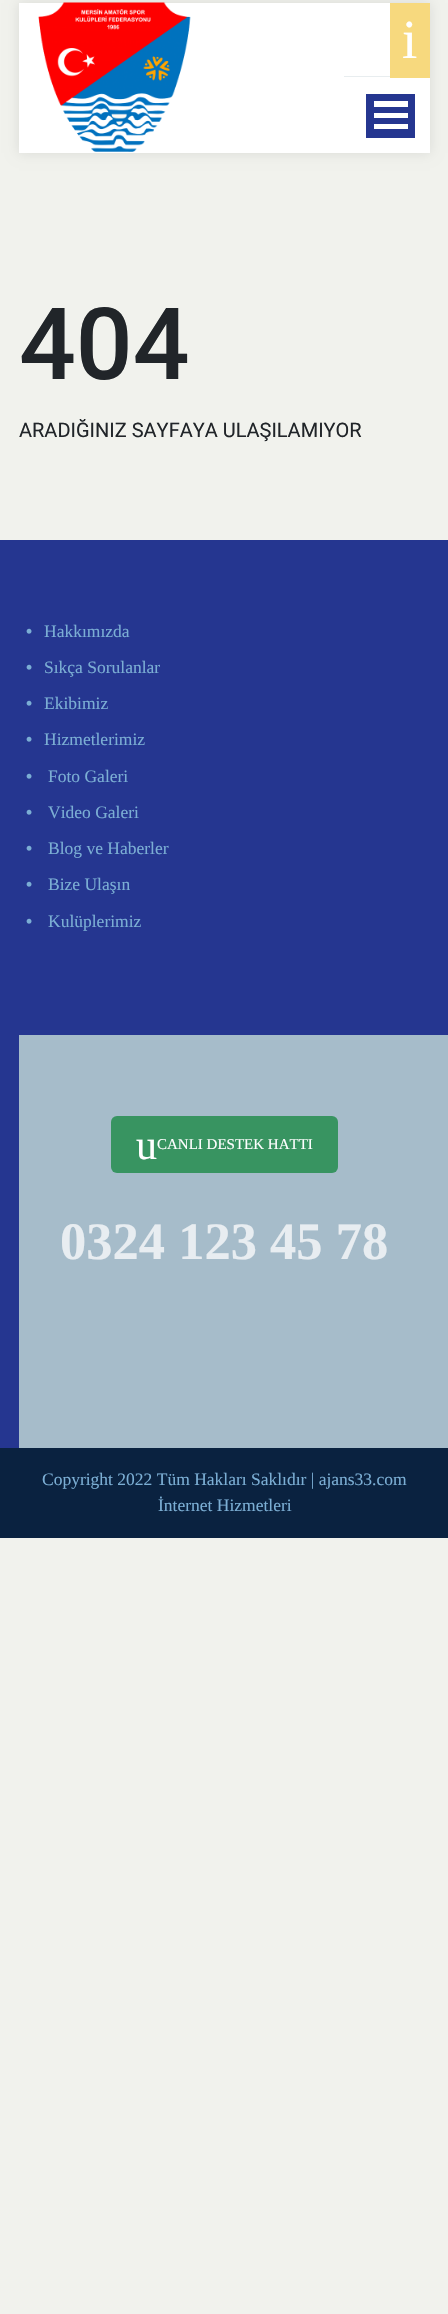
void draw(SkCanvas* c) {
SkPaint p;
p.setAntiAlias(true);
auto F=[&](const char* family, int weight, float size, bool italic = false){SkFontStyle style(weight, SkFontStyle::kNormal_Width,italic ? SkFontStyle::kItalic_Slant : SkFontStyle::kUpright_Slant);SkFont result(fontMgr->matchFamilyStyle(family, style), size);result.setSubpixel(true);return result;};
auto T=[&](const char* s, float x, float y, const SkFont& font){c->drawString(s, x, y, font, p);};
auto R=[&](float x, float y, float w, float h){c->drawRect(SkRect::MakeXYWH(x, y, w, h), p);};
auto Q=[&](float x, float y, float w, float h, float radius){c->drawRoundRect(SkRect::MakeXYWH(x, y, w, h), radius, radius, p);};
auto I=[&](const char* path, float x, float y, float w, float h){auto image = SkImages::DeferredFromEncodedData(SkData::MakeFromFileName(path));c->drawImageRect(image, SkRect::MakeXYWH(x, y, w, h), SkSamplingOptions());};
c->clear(0xfff1f2ed);
p.setColor(0x1a000000);
p.setMaskFilter(SkMaskFilter::MakeBlur(kNormal_SkBlurStyle, 6));
c->drawRect(SkRect::MakeXYWH(19,3,411,150),p);
p.setMaskFilter(nullptr);
p.setColor(0xffffffff);
R(19,3,411,150);
I("1.png",38,2,153,150);
p.setColor(0xffe8edef);
R(344,76,46,1);
p.setColor(0xfff7d97e);
R(390,3,40,75);
auto f1 = F("Liberation Serif",400,55);
p.setColor(0xffffffff);
T("i",402,58,f1);
p.setColor(0xff253690);
R(366,94,49,44);
p.setColor(0xffffffff);
R(374,101,34,6);
R(374,113,34,5);
R(374,124,34,5);
auto f2 = F("Roboto",500,100);
p.setColor(0xff212529);
T("404",19,379,f2);
auto f3 = F("Roboto",400,20);
T("ARADIĞINIZ SAYFAYA ULAŞILAMIYOR",19,437,f3);
p.setColor(0xff253690);
R(0,540,448,908);
auto f4 = F("Liberation Serif",700,17.5);
p.setColor(0xff7baed4);
T("•",26,637,f4);
auto f5 = F("Liberation Serif",400,17.5);
T("Hakkımızda",44,637,f5);
T("•",26,673,f4);
T("Sıkça Sorulanlar",44,673,f5);
T("•",26,709,f4);
T("Ekibimiz",44,709,f5);
T("•",26,745,f4);
T("Hizmetlerimiz",44,745,f5);
T("•",26,782,f4);
T("Foto Galeri",48,782,f5);
T("•",26,818,f4);
T("Video Galeri",48,818,f5);
T("•",26,854,f4);
T("Blog ve Haberler",48,854,f5);
T("•",26,890,f4);
T("Bize Ulaşın",48,890,f5);
T("•",26,927,f4);
T("Kulüplerimiz",48,927,f5);
p.setColor(0xffa6bcca);
R(19,1035,429,413);
p.setColor(0xff389461);
Q(111,1116,227,57,6);
auto f6 = F("Liberation Serif",400,42);
p.setColor(0xffffffff);
T("u",136,1159,f6);
auto f7 = F("Liberation Serif",400,15);
T("CANLI DESTEK HATTI",157,1149,f7);
auto f8 = F("Liberation Serif",700,52.5);
p.setColor(0xffe8edf1);
T("0324 123 45 78",60,1259,f8);
p.setColor(0xff0a2240);
R(0,1448,448,90);
p.setColor(0xff7baed4);
T("Copyright 2022 Tüm Hakları Saklıdır | ajans33.com",42,1485,f5);
T("İnternet Hizmetleri",158,1511,f5);
}
